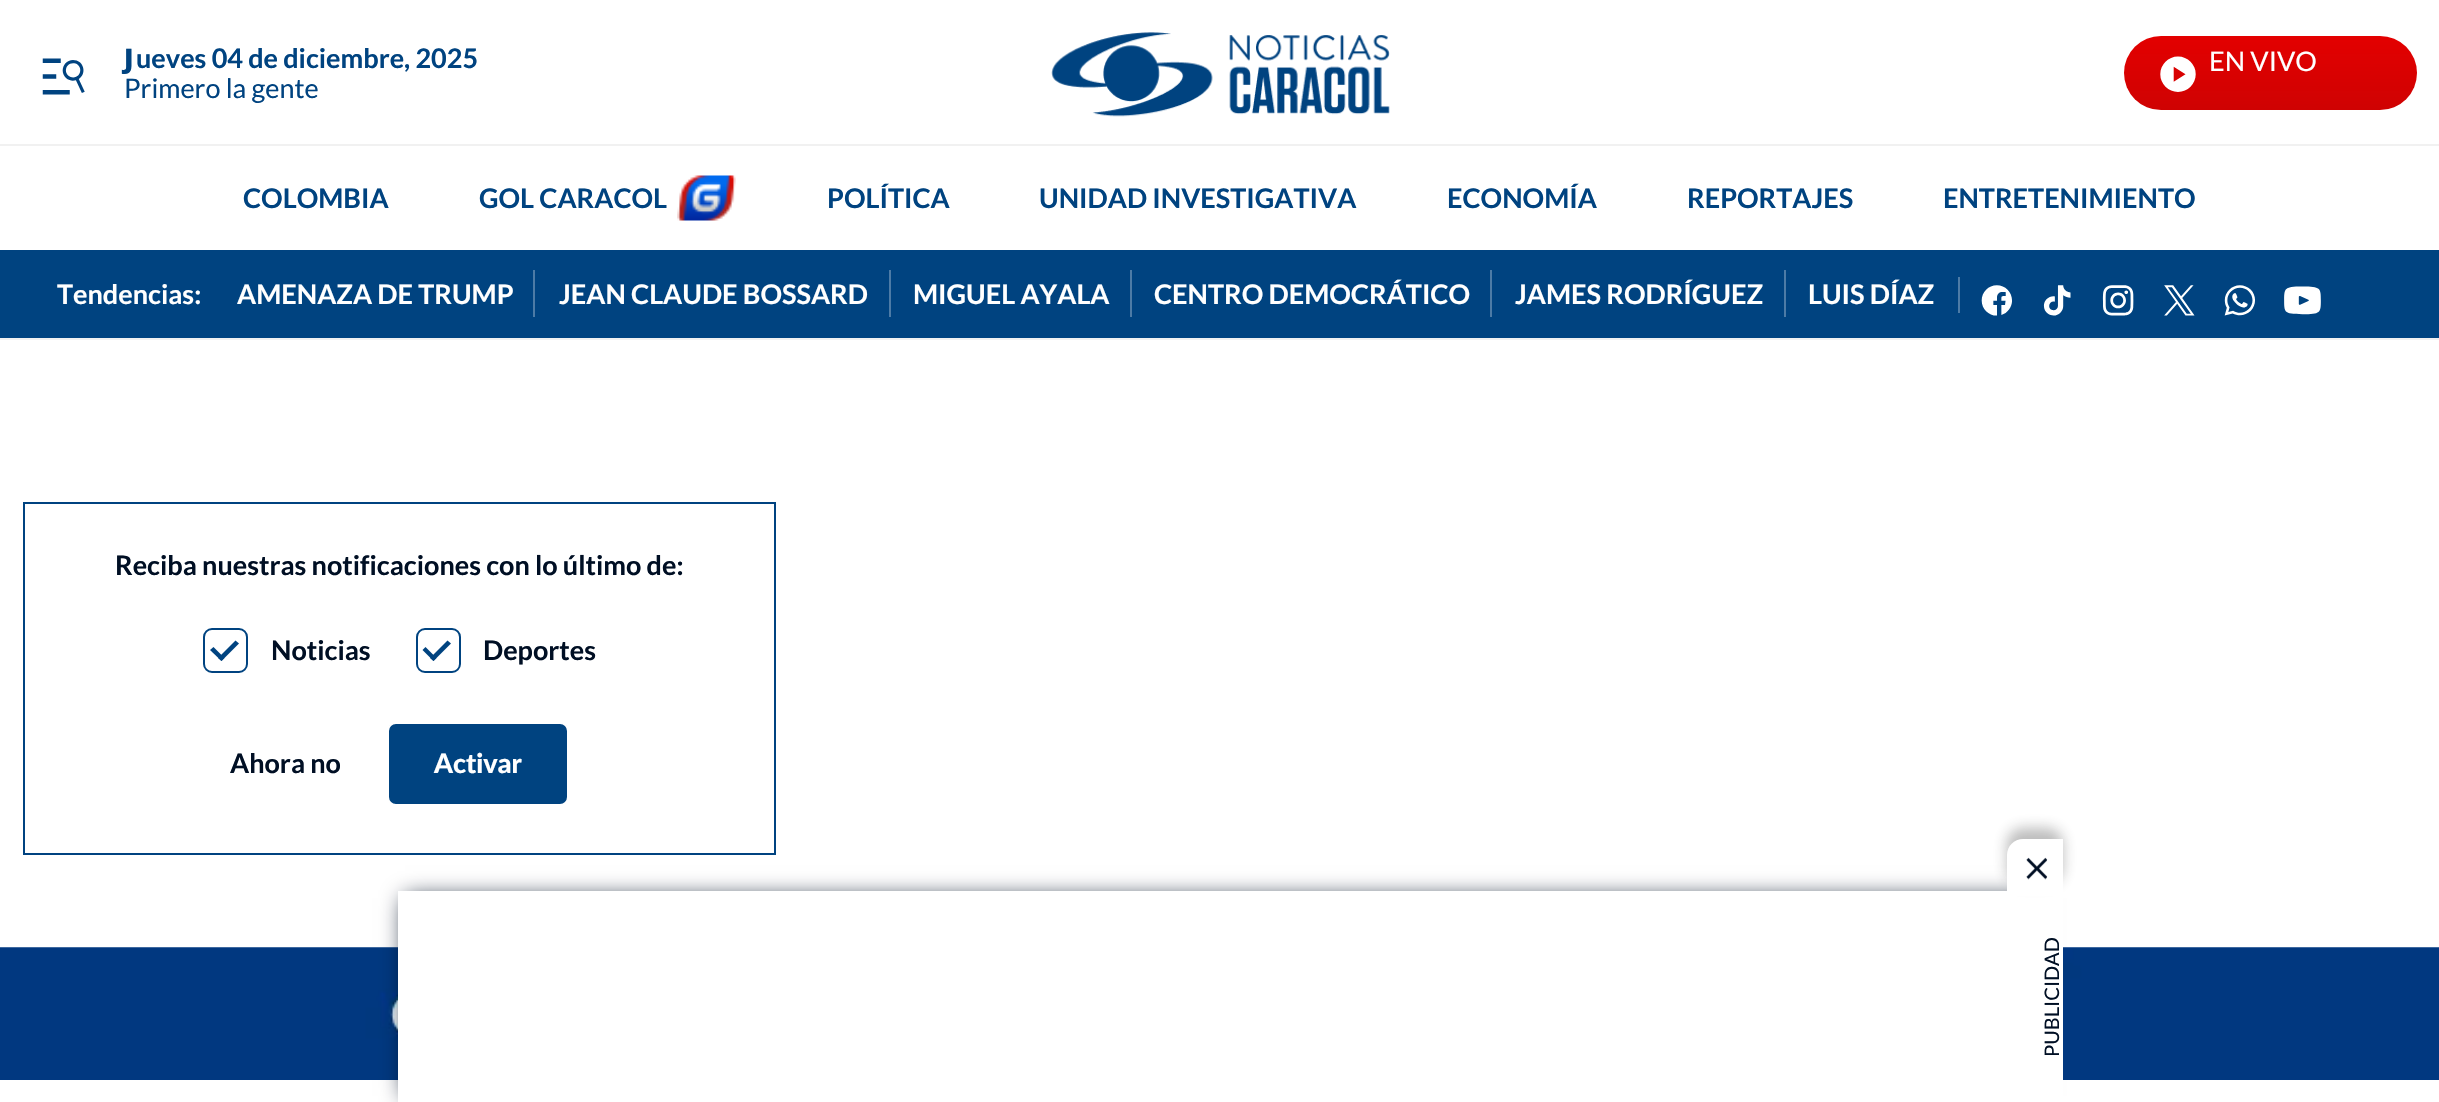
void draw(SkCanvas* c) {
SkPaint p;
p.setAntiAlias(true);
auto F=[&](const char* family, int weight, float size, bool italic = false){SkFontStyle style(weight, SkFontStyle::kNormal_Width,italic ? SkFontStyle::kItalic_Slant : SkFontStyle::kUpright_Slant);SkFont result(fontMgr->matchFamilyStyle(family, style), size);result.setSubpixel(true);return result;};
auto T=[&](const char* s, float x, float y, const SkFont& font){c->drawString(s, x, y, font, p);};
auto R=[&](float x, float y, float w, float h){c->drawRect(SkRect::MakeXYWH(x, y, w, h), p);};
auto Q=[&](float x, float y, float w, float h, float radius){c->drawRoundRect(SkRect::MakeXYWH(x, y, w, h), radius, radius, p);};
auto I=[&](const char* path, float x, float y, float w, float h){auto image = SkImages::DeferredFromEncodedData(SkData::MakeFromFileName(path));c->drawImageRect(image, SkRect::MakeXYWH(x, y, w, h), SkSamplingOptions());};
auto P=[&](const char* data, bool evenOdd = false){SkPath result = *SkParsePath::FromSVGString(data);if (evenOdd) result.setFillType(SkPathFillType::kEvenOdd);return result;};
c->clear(0xffffffff);
p.setColor(0xfff1f1f1);
R(0,144,2439,2);
I("1.png",42,58,43,37);
auto f1 = F("Noto Sans",900,27);
p.setColor(0xff004380);
T("J",124,68,f1);
auto f2 = F("Lato",700,27);
T("ueves 04 de diciembre, 2025",136,68,f2);
auto f3 = F("Lato",400,27);
T("Primero la gente",124,98,f3);
I("2.png",1051,32,339,85);
{
const SkColor colors[] = {0xffe30000,0xffcf0202};
const float stops[] = {0,1};
const SkPoint ends[] = {{2270,36}, {2270,110}};
p.setShader(SkGradientShader::MakeLinear(ends, colors, stops, 2, SkTileMode::kClamp));
p.setAlpha(255);
}
Q(2124,36,293,74,37);
I("3.png",2160,56,36,36);
p.setShader(nullptr);
p.setColor(0xffffffff);
T("EN VIVO",2209,71,f3);
p.setColor(0xff004380);
T("COLOMBIA",243,208,f2);
T("GOL CARACOL",479,208,f2);
I("4.png",677,175,59,46);
T("POLÍTICA",827,208,f2);
T("UNIDAD INVESTIGATIVA",1039,208,f2);
T("ECONOMÍA",1447,208,f2);
T("REPORTAJES",1687,208,f2);
T("ENTRETENIMIENTO",1943,208,f2);
R(0,250,2439,88);
p.setColor(0xfff1f1f1);
R(0,338,2439,2);
p.setColor(0xffffffff);
T("Tendencias:",57,304,f2);
T("AMENAZA DE TRUMP",237,304,f2);
p.setColor(0xff4d7ba6);
R(533,270,2,47);
p.setColor(0xffffffff);
T("JEAN CLAUDE BOSSARD",559,304,f2);
p.setColor(0xff4d7ba6);
R(889,270,2,47);
p.setColor(0xffffffff);
T("MIGUEL AYALA",913,304,f2);
p.setColor(0xff4d7ba6);
R(1130,270,2,47);
p.setColor(0xffffffff);
T("CENTRO DEMOCRÁTICO",1154,304,f2);
p.setColor(0xff4d7ba6);
R(1490,270,2,47);
p.setColor(0xffffffff);
T("JAMES RODRÍGUEZ",1515,304,f2);
p.setColor(0xff4d7ba6);
R(1784,270,2,47);
p.setColor(0xffffffff);
T("LUIS DÍAZ",1808,304,f2);
p.setColor(0xff4d7ba6);
R(1958,277,2,36);
I("5.png",1981,285,31,31);
I("6.png",2043,285,28,31);
I("7.png",2102,285,32,31);
I("8.png",2164,285,31,31);
I("9.png",2224,285,31,31);
I("10.png",2284,286,37,29);
p.setStroke(true);
p.setStrokeWidth(2);
p.setColor(0xff004380);
c->drawRect(SkRect::MakeXYWH(24,503,751,351),p);
p.setStroke(false);
p.setColor(0xff000f24);
T("Reciba nuestras notificaciones con lo último de:",115,575,f2);
p.setStroke(true);
p.setColor(0xff004380);
c->drawRoundRect(SkRect::MakeXYWH(204,629,43,43),8,8,p);
p.setStroke(false);
c->drawPath(P("M235.5 640.5l3.5 3l-17.5 17.5l-3.5-3z"),p);
c->drawPath(P("M213.5 647l11 11l-3 3l-11.5-11z"),p);
p.setColor(0xff000f24);
T("Noticias",271,660,f2);
p.setStroke(true);
p.setColor(0xff004380);
c->drawRoundRect(SkRect::MakeXYWH(417,629,43,43),8,8,p);
p.setStroke(false);
c->drawPath(P("M447.5 640.5l3.5 3l-17.5 17.5l-3.5-3z"),p);
c->drawPath(P("M425.5 647l11 11l-3 3l-11-11z"),p);
p.setColor(0xff000f24);
T("Deportes",483,660,f2);
T("Ahora no",230,773,f2);
p.setColor(0xff004380);
c->drawRoundRect(SkRect::MakeXYWH(388,723,180,82),8,8,p);
p.setStroke(true);
p.setColor(0xffffffff);
c->drawRoundRect(SkRect::MakeXYWH(388,723,180,82),8,8,p);
auto f4 = F("Lato",900,27);
p.setStroke(false);
T("Activar",434,773,f4);
I("12.png",0,947,2439,133);
p.setColor(0xff000f24);
p.setMaskFilter(SkMaskFilter::MakeBlur(kNormal_SkBlurStyle, 11));
c->drawRect(SkRect::MakeXYWH(405,898,1629,198),p);
p.setMaskFilter(nullptr);
p.setColor(0xffffffff);
R(398,891,1636,211);
R(2034,896,29,206);
p.setColor(0x4d212121);
p.setMaskFilter(SkMaskFilter::MakeBlur(kNormal_SkBlurStyle, 7));
c->drawRoundRect(SkRect::MakeXYWH(2007,828,56,56),16,16,p);
p.setMaskFilter(nullptr);
p.setColor(0xffffffff);
c->drawPath(P("M2023 839h40v57h-56v-41c0-9 7-16 16-16z"),p);
I("11.png",2026,857,22,23);
auto f5 = F("Lato",400,20);
p.setColor(0xff000f24);
c->save();
c->rotate(-90,2059,1057);
T("PUBLICIDAD",2059,1057,f5);
c->restore();
}
